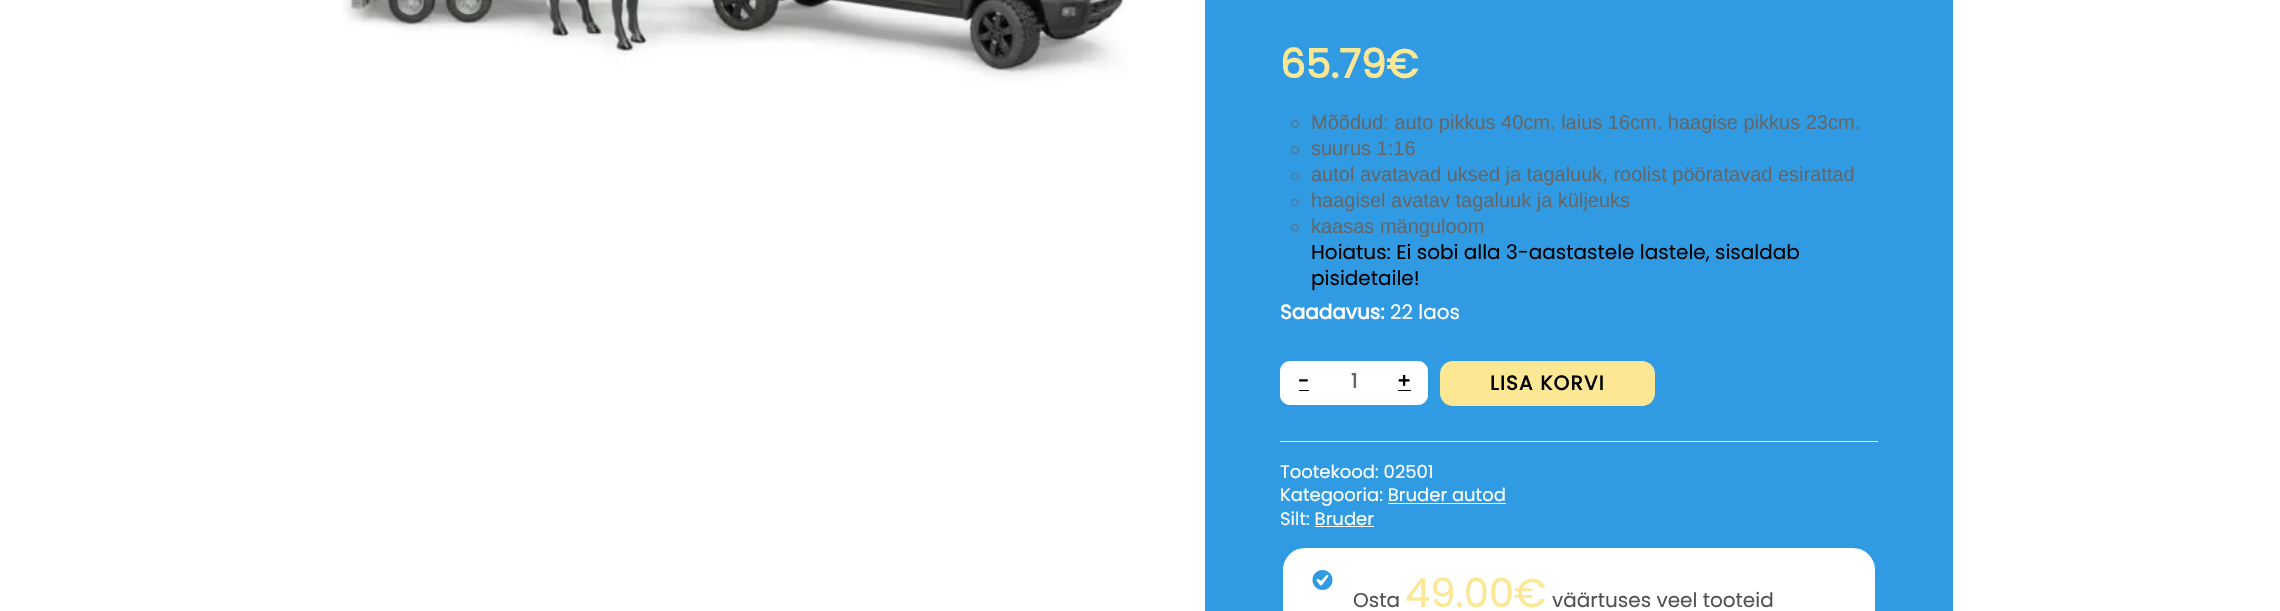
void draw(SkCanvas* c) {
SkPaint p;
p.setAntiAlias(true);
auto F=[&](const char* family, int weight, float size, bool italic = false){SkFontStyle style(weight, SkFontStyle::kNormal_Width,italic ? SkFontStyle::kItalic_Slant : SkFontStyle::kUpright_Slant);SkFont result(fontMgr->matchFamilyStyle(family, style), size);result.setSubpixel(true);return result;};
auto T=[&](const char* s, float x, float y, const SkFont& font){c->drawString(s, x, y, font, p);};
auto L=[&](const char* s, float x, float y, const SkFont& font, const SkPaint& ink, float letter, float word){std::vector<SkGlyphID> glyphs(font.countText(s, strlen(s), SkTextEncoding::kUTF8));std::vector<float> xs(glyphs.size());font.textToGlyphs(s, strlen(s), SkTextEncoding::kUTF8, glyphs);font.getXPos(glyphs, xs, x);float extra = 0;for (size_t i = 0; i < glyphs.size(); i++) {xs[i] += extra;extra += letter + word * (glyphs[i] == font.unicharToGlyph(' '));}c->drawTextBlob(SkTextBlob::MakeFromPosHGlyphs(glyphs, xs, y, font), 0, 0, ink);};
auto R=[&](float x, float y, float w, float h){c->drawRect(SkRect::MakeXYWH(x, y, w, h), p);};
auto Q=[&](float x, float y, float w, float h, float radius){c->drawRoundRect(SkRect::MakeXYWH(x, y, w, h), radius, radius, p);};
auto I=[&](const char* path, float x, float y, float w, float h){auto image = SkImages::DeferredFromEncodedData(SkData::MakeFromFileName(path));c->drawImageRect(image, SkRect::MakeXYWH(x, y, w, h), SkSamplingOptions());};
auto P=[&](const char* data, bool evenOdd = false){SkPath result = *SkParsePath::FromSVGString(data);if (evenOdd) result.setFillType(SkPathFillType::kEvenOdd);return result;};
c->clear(0xffffffff);
I("1.png",342,0,786,83);
p.setColor(0xff309be3);
R(1205,0,748,611);
auto f1 = F("Poppins",700,40);
p.setColor(0xfffce795);
T("65.79€",1280,78,f1);
p.setStroke(true);
p.setStrokeWidth(1);
p.setColor(0xff666666);
c->drawCircle(1295,124,3.5,p);
auto f2 = F("Liberation Sans",400,20);
p.setStroke(false);
T("Mõõdud: auto pikkus 40cm. laius 16cm. haagise pikkus 23cm.",1311,129,f2);
p.setStroke(true);
c->drawCircle(1295,150,3.5,p);
p.setStroke(false);
T("suurus 1:16",1311,155,f2);
p.setStroke(true);
c->drawRoundRect(SkRect::MakeXYWH(1291.5,173.5,7,6),3,3,p);
p.setStroke(false);
T("autol avatavad uksed ja tagaluuk, roolist pööratavad esirattad",1311,181,f2);
p.setStroke(true);
c->drawRoundRect(SkRect::MakeXYWH(1291.5,199.5,7,6),3,3,p);
p.setStroke(false);
T("haagisel avatav tagaluuk ja küljeuks",1311,207,f2);
p.setStroke(true);
c->drawRoundRect(SkRect::MakeXYWH(1291.5,224.5,7,6),3,3,p);
p.setStroke(false);
T("kaasas mänguloom",1311,233,f2);
auto f3 = F("Poppins",400,20);
p.setColor(0xff000000);
T("Hoiatus: Ei sobi alla 3-aastastele lastele, sisaldab",1311,259,f3);
T("pisidetaile!",1311,285,f3);
auto f4 = F("Poppins",700,20);
p.setColor(0xffffffff);
T("Saadavus:",1280,319,f4);
T("22 laos",1390,319,f3);
c->drawPath(P("M1290 361h38v44h-38c-5.5 0-10-4.5-10-10v-24c0-5.5 4.5-10 10-10z"),p);
p.setColor(0xff000000);
T("-",1298,388,f4);
R(1299,390,10,1);
p.setColor(0xffffffff);
R(1328,361,52,44);
p.setColor(0xff666666);
T("1",1351,388,f4);
p.setColor(0xffffffff);
c->drawPath(P("M1380 361h38c5.5 0 10 4.5 10 10v24c0 5.5-4.5 10-10 10h-38z"),p);
p.setColor(0xff000000);
T("+",1397,388,f4);
R(1398,390,13,1);
p.setColor(0xfffce795);
Q(1440,361,215,45,13);
p.setColor(0xff000000);
L("LISA KORVI",1490,390,f4,p,1.25,0);
p.setColor(0xffebebeb);
R(1280,441,598,1);
auto f5 = F("Poppins",400,18);
p.setColor(0xffffffff);
T("Tootekood: 02501",1280,478,f5);
T("Kategooria: Bruder autod",1280,501,f5);
R(1388,503,118,1);
T("Silt: Bruder",1280,525,f5);
R(1315,526,59,1);
c->drawRoundRect(SkRect::MakeXYWH(1281.5,546.5,595,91),23.5,23.5,p);
p.setStroke(true);
p.setStrokeWidth(3);
p.setColor(0xff309be3);
c->drawRoundRect(SkRect::MakeXYWH(1281.5,546.5,595,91),23.5,23.5,p);
I("2.png",1312,570,21,20);
p.setStroke(false);
p.setColor(0xff515151);
T("Osta",1353,607,f3);
auto f6 = F("Poppins",400,40);
p.setColor(0xfffce795);
T("49.00€",1405,607,f6);
p.setColor(0xff515151);
T("väärtuses veel tooteid",1552,607,f3);
}
